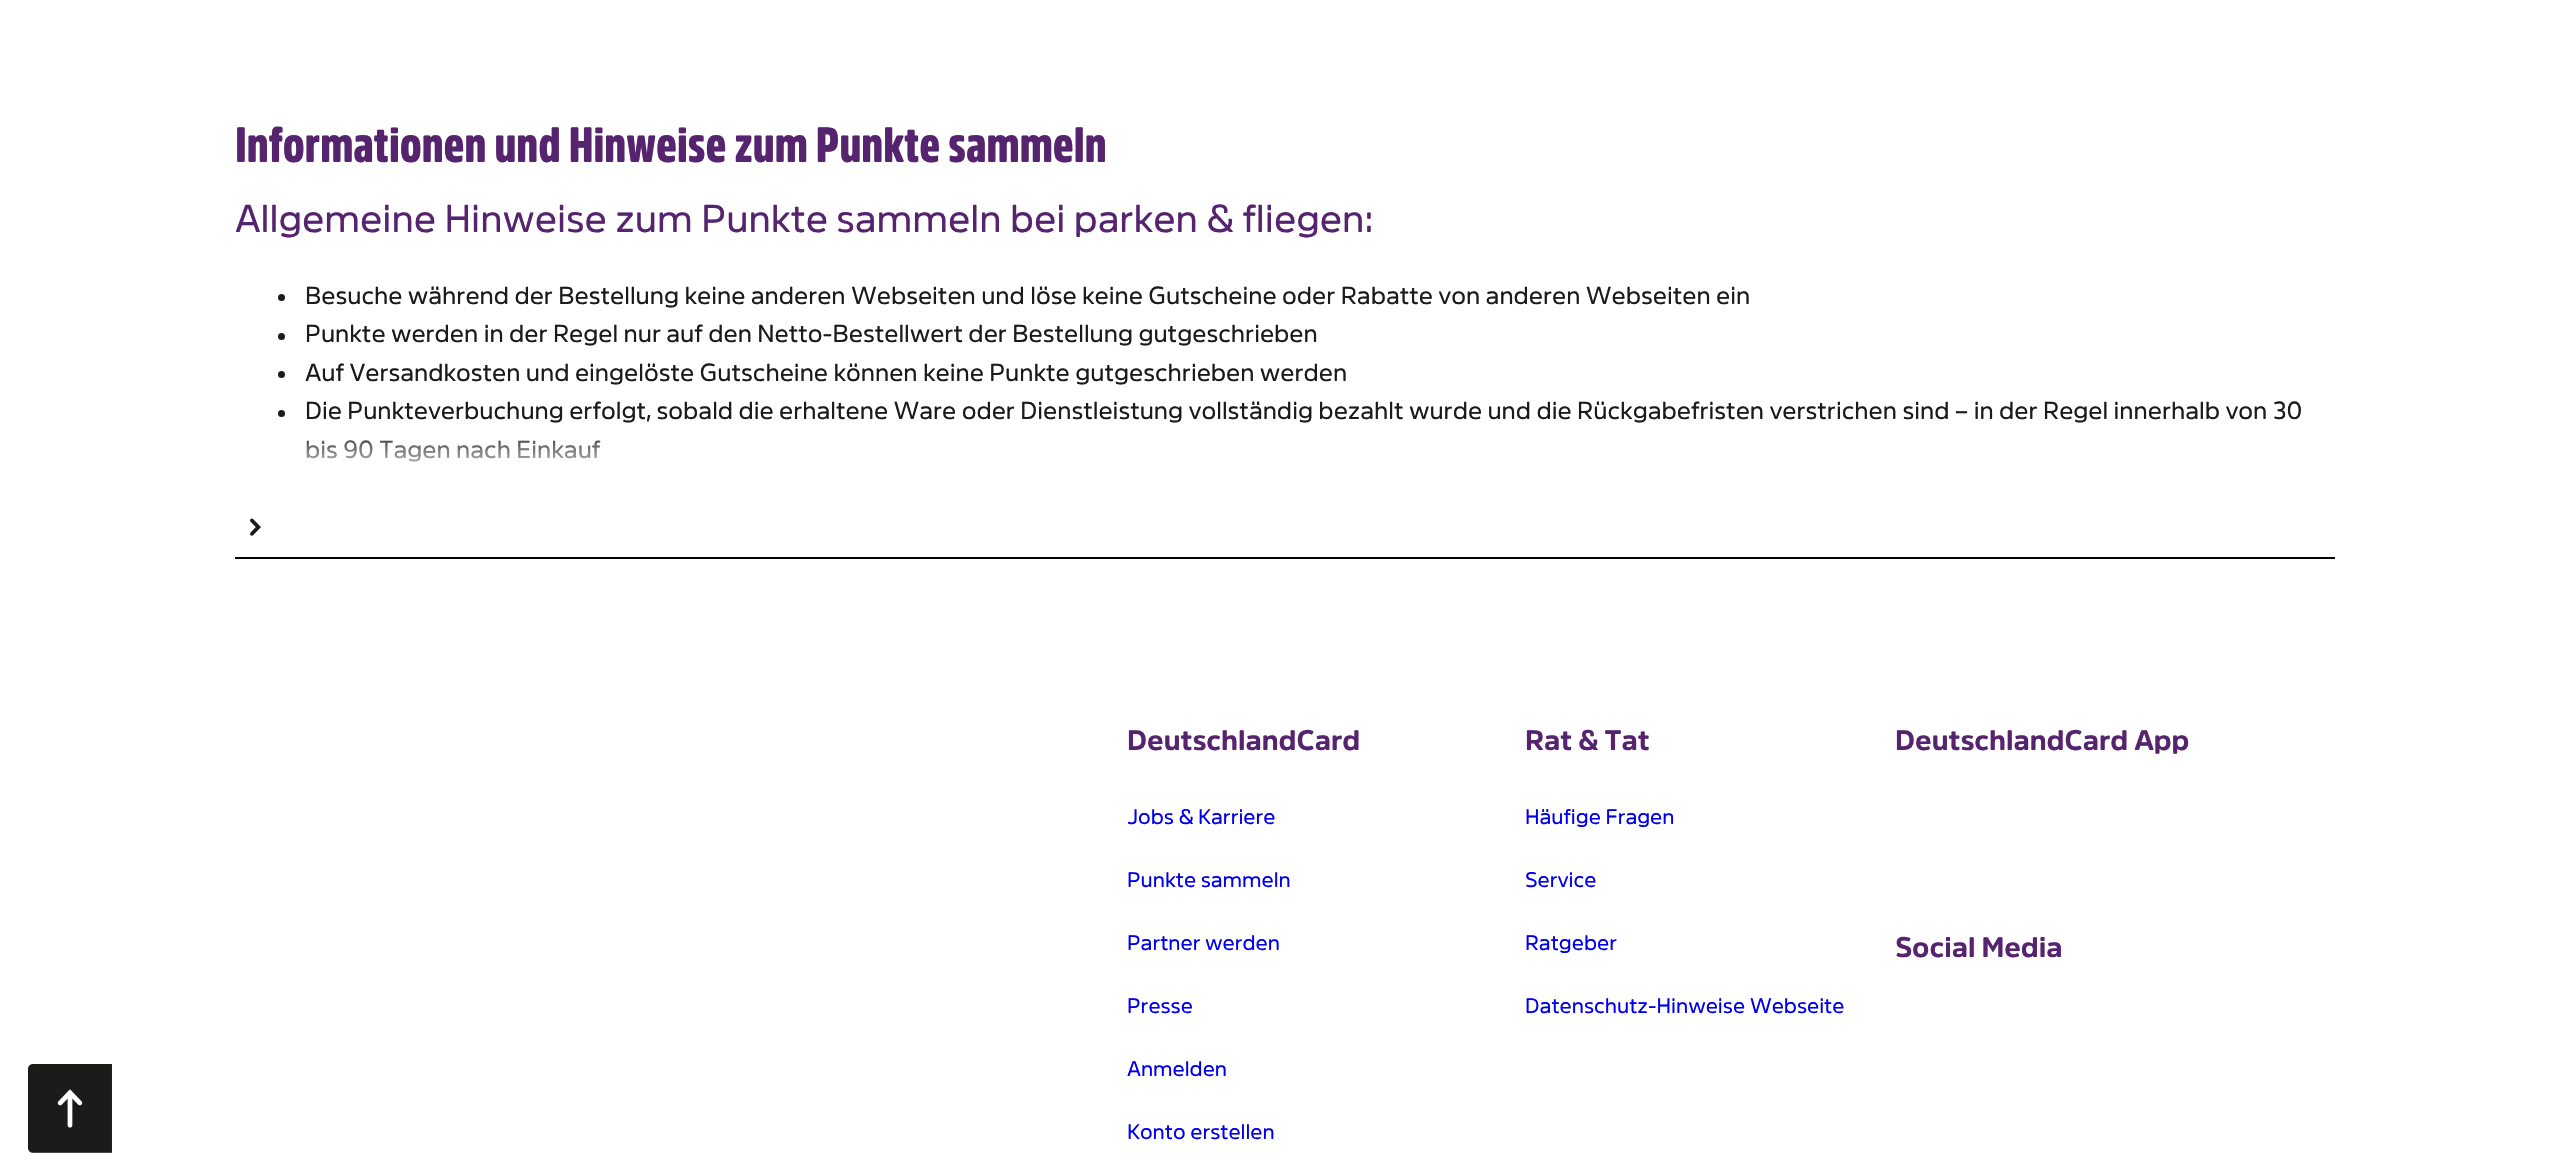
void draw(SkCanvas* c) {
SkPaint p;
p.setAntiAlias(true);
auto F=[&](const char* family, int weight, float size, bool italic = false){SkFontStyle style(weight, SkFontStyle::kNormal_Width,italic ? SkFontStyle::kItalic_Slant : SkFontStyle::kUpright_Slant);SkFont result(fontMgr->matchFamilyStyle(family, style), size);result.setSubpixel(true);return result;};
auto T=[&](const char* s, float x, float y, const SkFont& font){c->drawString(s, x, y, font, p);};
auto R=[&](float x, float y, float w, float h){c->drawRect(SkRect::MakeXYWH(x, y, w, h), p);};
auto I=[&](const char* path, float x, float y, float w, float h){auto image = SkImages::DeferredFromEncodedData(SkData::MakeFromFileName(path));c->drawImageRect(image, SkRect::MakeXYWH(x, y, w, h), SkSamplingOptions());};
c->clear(0xffffffff);
I("1.png",28,1064,84,89);
p.setColor(0xff000000);
R(235,557,2100,2);
auto f1 = F("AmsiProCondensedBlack",400,49);
p.setColor(0xff56246f);
T("Informationen und Hinweise zum Punkte sammeln",235,162,f1);
auto f2 = F("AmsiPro",400,38.5);
T("Allgemeine Hinweise zum Punkte sammeln bei parken & fliegen:",235,232,f2);
p.setColor(0xff1b1b1b);
c->drawCircle(281.5,297.5,3.5,p);
auto f3 = F("AmsiPro",400,24.5);
T("Besuche während der Bestellung keine anderen Webseiten und löse keine Gutscheine oder Rabatte von anderen Webseiten ein",305,304,f3);
c->drawCircle(281.5,336.5,3.5,p);
T("Punkte werden in der Regel nur auf den Netto-Bestellwert der Bestellung gutgeschrieben",305,342,f3);
c->drawCircle(281.5,374.5,3.5,p);
T("Auf Versandkosten und eingelöste Gutscheine können keine Punkte gutgeschrieben werden",305,381,f3);
c->drawCircle(281.5,413.5,3.5,p);
T("Die Punkteverbuchung erfolgt, sobald die erhaltene Ware oder Dienstleistung vollständig bezahlt wurde und die Rückgabefristen verstrichen sind – in der Regel innerhalb von 30",305,419,f3);
T("bis 90 Tagen nach Einkauf",305,458,f3);
{
const SkColor colors[] = {0x00ffffff,0xffffffff};
const float stops[] = {0,1};
const SkPoint ends[] = {{1285,427}, {1285,483}};
p.setShader(SkGradientShader::MakeLinear(ends, colors, stops, 2, SkTileMode::kClamp));
p.setAlpha(255);
}
R(306,440,294,22);
I("2.png",250,518,11,18);
auto f4 = F("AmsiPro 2",400,28);
p.setShader(nullptr);
p.setColor(0xff56246f);
T("DeutschlandCard",1127,750,f4);
auto f5 = F("AmsiPro",400,21);
p.setColor(0xff0000ee);
T("Jobs & Karriere",1127,824,f5);
T("Punkte sammeln",1127,887,f5);
T("Partner werden",1127,950,f5);
T("Presse",1127,1013,f5);
T("Anmelden",1127,1076,f5);
T("Konto erstellen",1127,1139,f5);
p.setColor(0xff56246f);
T("Rat & Tat",1525,750,f4);
p.setColor(0xff0000ee);
T("Häufige Fragen",1525,824,f5);
T("Service",1525,887,f5);
T("Ratgeber",1525,950,f5);
T("Datenschutz-Hinweise Webseite",1525,1013,f5);
p.setColor(0xff56246f);
T("DeutschlandCard App",1895,750,f4);
T("Social Media",1895,957,f4);
}
